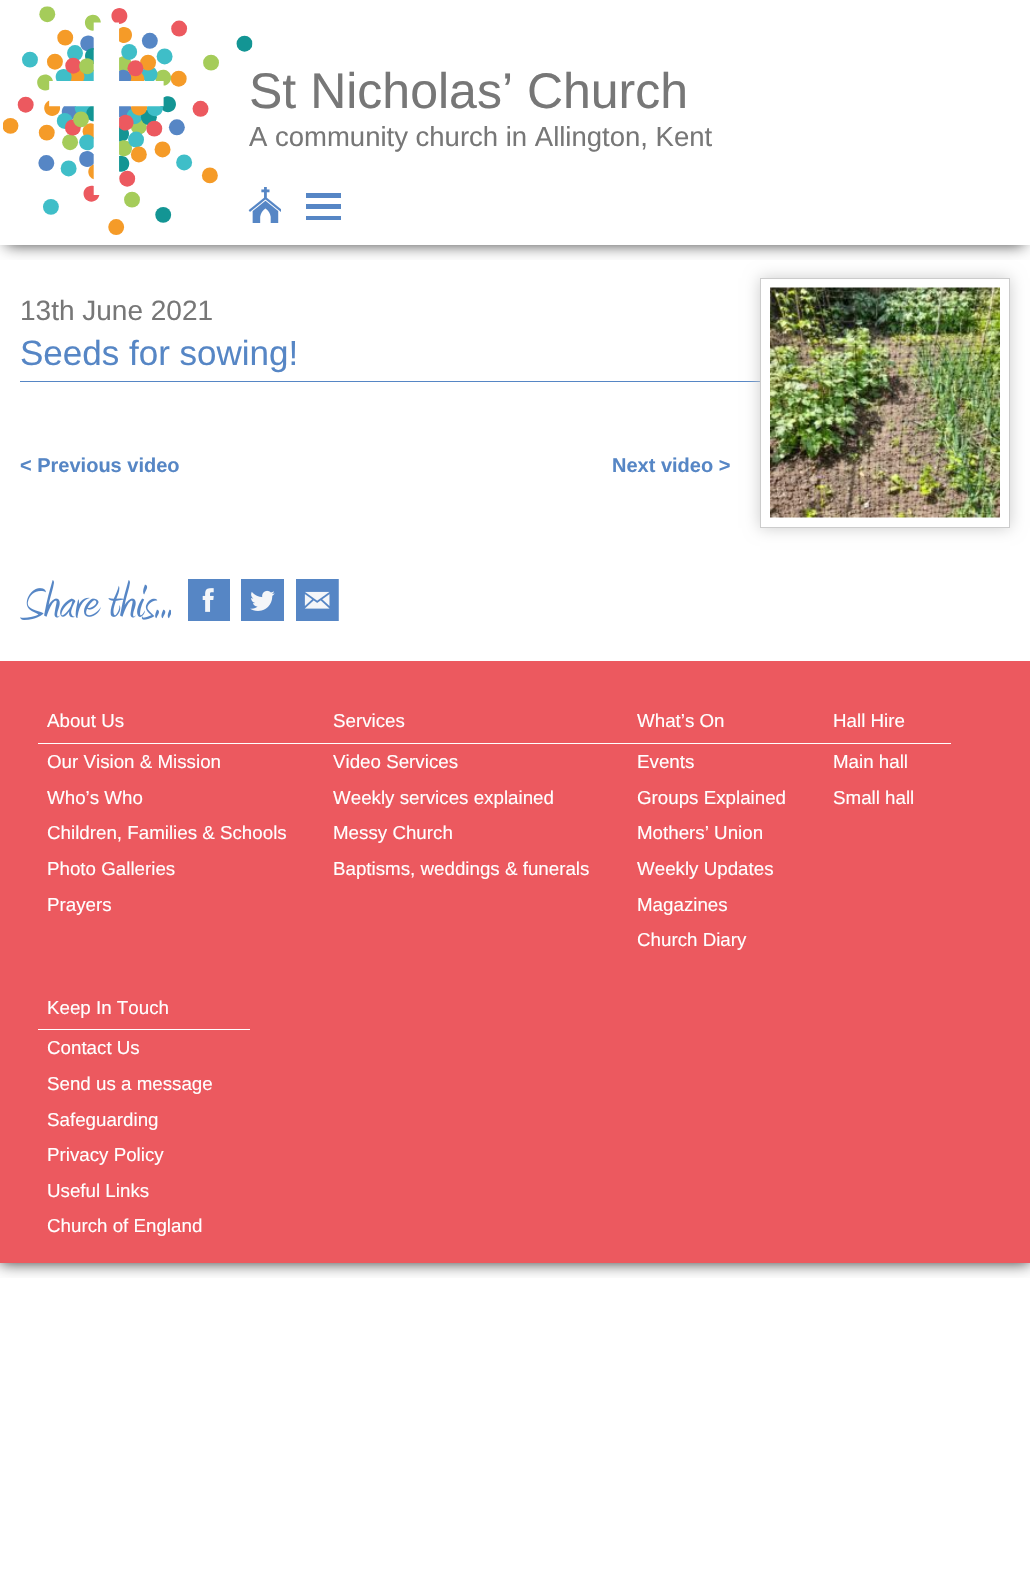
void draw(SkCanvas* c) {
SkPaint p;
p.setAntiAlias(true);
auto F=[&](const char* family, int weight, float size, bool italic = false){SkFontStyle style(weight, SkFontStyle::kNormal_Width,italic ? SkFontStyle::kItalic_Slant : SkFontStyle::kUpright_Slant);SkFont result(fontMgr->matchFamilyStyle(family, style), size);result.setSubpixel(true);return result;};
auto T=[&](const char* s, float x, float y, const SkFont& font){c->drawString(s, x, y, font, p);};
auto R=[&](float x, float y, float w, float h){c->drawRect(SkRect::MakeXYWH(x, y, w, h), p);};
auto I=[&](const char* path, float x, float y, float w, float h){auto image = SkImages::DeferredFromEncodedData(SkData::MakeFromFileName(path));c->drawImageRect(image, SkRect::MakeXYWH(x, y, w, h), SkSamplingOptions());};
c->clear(0xffffffff);
c->save();
c->clipRect(SkRect::MakeXYWH(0,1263,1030,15));
p.setColor(0xff333333);
p.setMaskFilter(SkMaskFilter::MakeBlur(kNormal_SkBlurStyle, 7.5));
c->drawRect(SkRect::MakeXYWH(0,0,1030,1263),p);
p.setMaskFilter(nullptr);
c->restore();
c->save();
c->clipRect(SkRect::MakeXYWH(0,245,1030,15));
p.setColor(0xff444444);
p.setMaskFilter(SkMaskFilter::MakeBlur(kNormal_SkBlurStyle, 7.5));
c->drawRect(SkRect::MakeXYWH(6,13,1018,232),p);
p.setMaskFilter(nullptr);
c->restore();
I("1.png",3,6,250,229);
auto f1 = F("Liberation Sans",400,50);
p.setColor(0xff777777);
T("St Nicholas’ Church",249,108,f1);
auto f2 = F("Liberation Sans",400,27.5);
T("A community church in Allington, Kent",249,146,f2);
I("2.png",248,187,33,36);
I("3.png",306,193,35,27);
p.setColor(0xff5686c5);
R(20,381,740,1);
auto f3 = F("Liberation Sans",400,28);
p.setColor(0xff777777);
T("13th June 2021",20,320,f3);
auto f4 = F("Liberation Sans",400,35);
p.setColor(0xff5686c5);
T("Seeds for sowing!",20,365,f4);
p.setColor(0xffcccccc);
p.setMaskFilter(SkMaskFilter::MakeBlur(kNormal_SkBlurStyle, 7.5));
c->drawRect(SkRect::MakeXYWH(760,278,250,250),p);
p.setMaskFilter(nullptr);
p.setColor(0xffffffff);
c->drawRect(SkRect::MakeXYWH(760.5,278.5,249,249),p);
p.setStroke(true);
p.setStrokeWidth(1);
p.setColor(0xffcccccc);
c->drawRect(SkRect::MakeXYWH(760.5,278.5,249,249),p);
I("4.png",770,287,230,231);
auto f5 = F("Liberation Sans",700,20);
p.setStroke(false);
p.setColor(0xff5686c5);
T("< Previous video",20,472,f5);
T("Next video >",612,472,f5);
I("5.png",20,580,151,40);
p.setColor(0xfff4f6f9);
R(202,588,12,24);
I("6.png",188,579,42,42);
R(250,590,25,21);
I("7.png",241,579,43,42);
R(304,579,35,42);
I("8.png",296,579,43,42);
p.setColor(0xffec595f);
R(0,661,1030,602);
p.setColor(0xffffffff);
R(38,743,913,1);
auto f6 = F("Liberation Sans",400,18.75);
T("About Us",47,727,f6);
T("Our Vision & Mission",47,768,f6);
T("Who’s Who",47,804,f6);
T("Children, Families & Schools",47,839,f6);
T("Photo Galleries",47,875,f6);
T("Prayers",47,911,f6);
T("Services",333,727,f6);
T("Video Services",333,768,f6);
T("Weekly services explained",333,804,f6);
T("Messy Church",333,839,f6);
T("Baptisms, weddings & funerals",333,875,f6);
T("What’s On",637,727,f6);
T("Events",637,768,f6);
T("Groups Explained",637,804,f6);
T("Mothers’ Union",637,839,f6);
T("Weekly Updates",637,875,f6);
T("Magazines",637,911,f6);
T("Church Diary",637,946,f6);
T("Hall Hire",833,727,f6);
T("Main hall",833,768,f6);
T("Small hall",833,804,f6);
R(38,1029,212,1);
T("Keep In Touch",47,1014,f6);
T("Contact Us",47,1054,f6);
T("Send us a message",47,1090,f6);
T("Safeguarding",47,1126,f6);
T("Privacy Policy",47,1161,f6);
T("Useful Links",47,1197,f6);
T("Church of England",47,1232,f6);
}
